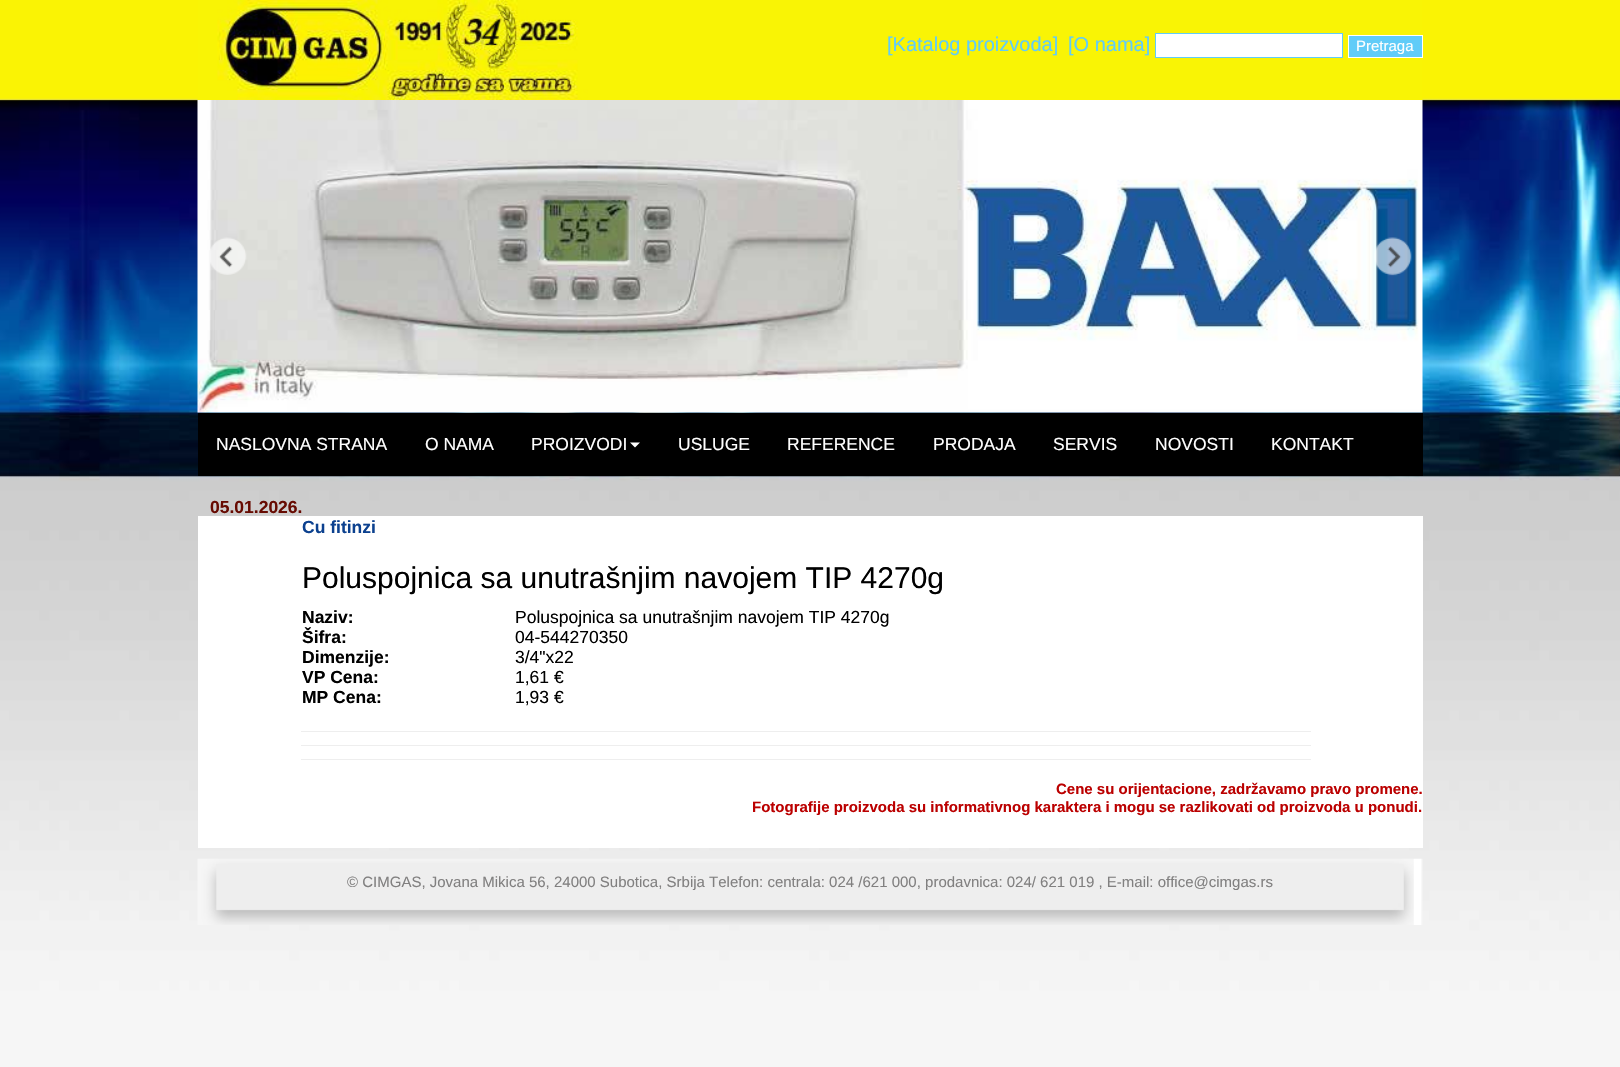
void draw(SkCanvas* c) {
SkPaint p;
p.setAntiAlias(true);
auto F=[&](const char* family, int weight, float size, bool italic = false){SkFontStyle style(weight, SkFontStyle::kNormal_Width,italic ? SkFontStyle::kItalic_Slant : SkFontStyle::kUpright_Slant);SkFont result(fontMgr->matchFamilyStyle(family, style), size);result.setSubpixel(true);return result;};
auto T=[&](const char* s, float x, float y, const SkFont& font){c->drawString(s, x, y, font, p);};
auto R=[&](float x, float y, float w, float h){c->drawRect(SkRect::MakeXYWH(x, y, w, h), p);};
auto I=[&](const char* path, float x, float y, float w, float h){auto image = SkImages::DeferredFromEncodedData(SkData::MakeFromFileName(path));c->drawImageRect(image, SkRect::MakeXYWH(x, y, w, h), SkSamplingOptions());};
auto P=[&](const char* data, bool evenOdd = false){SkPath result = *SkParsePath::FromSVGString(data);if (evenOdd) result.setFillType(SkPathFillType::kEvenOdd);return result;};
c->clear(0xffffffff);
I("1.png",0,0,1620,1067);
I("2.png",197,0,1226,100);
auto f1 = F("Liberation Sans",400,20);
p.setColor(0xff61ccf8);
T("[Katalog proizvoda]",887,51,f1);
T("[O nama]",1068,51,f1);
p.setColor(0xffffffff);
c->drawRect(SkRect::MakeXYWH(1155.5,33.5,187,24),p);
p.setStroke(true);
p.setStrokeWidth(1);
p.setColor(0xff61ccf8);
c->drawRect(SkRect::MakeXYWH(1155.5,33.5,187,24),p);
p.setStroke(false);
c->drawRect(SkRect::MakeXYWH(1348.5,35.5,74,22),p);
p.setStroke(true);
p.setColor(0xffffffff);
c->drawRect(SkRect::MakeXYWH(1348.5,35.5,74,22),p);
auto f2 = F("Liberation Sans",400,15);
p.setStroke(false);
T("Pretraga",1356,51,f2);
I("3.png",197,100,1226,313);
I("4.png",210,237,37,38);
I("5.png",1374,237,38,39);
p.setColor(0xff000000);
R(198,413,1225,63);
auto f3 = F("Liberation Sans",400,17.5);
p.setColor(0xffffffff);
T("NASLOVNA STRANA",216,450,f3);
T("O NAMA",425,450,f3);
T("PROIZVODI",531,450,f3);
c->drawPath(P("M630 442.5h10l-5 5z"),p);
T("USLUGE",678,450,f3);
T("REFERENCE",787,450,f3);
T("PRODAJA",933,450,f3);
T("SERVIS",1053,450,f3);
T("NOVOSTI",1155,450,f3);
T("KONTAKT",1271,450,f3);
auto f4 = F("Liberation Sans",700,17.5);
p.setColor(0xff670b02);
T("05.01.2026.",210,513,f4);
p.setColor(0xffffffff);
R(198,516,1225,332);
p.setColor(0xff0c418f);
T("Cu fitinzi",302,533,f4);
auto f5 = F("Liberation Sans",400,30);
p.setColor(0xff000000);
T("Poluspojnica sa unutrašnjim navojem TIP 4270g",302,588,f5);
T("Naziv:",302,623,f4);
T("Poluspojnica sa unutrašnjim navojem TIP 4270g",515,623,f3);
T("Šifra:",302,643,f4);
T("04-544270350",515,643,f3);
T("Dimenzije:",302,663,f4);
T("3/4\"x22",515,663,f3);
T("VP Cena:",302,683,f4);
T("1,61 €",515,683,f3);
T("MP Cena:",302,703,f4);
T("1,93 €",515,703,f3);
p.setColor(0xffeeeeee);
R(301,731,1010,1);
R(301,745,1010,1);
R(301,759,1010,1);
auto f6 = F("Liberation Sans",700,15);
p.setColor(0xffbb0000);
T("Cene su orijentacione, zadržavamo pravo promene.",1056,794,f6);
T("Fotografije proizvoda su informativnog karaktera i mogu se razlikovati od proizvoda u ponudi.",752,812,f6);
I("6.png",197,858,1226,67);
p.setColor(0xff818080);
T("© CIMGAS, Jovana Mikica 56, 24000 Subotica, Srbija Telefon: centrala: 024 /621 000, prodavnica: 024/ 621 019 , E-mail: office@cimgas.rs",347,887,f2);
}
